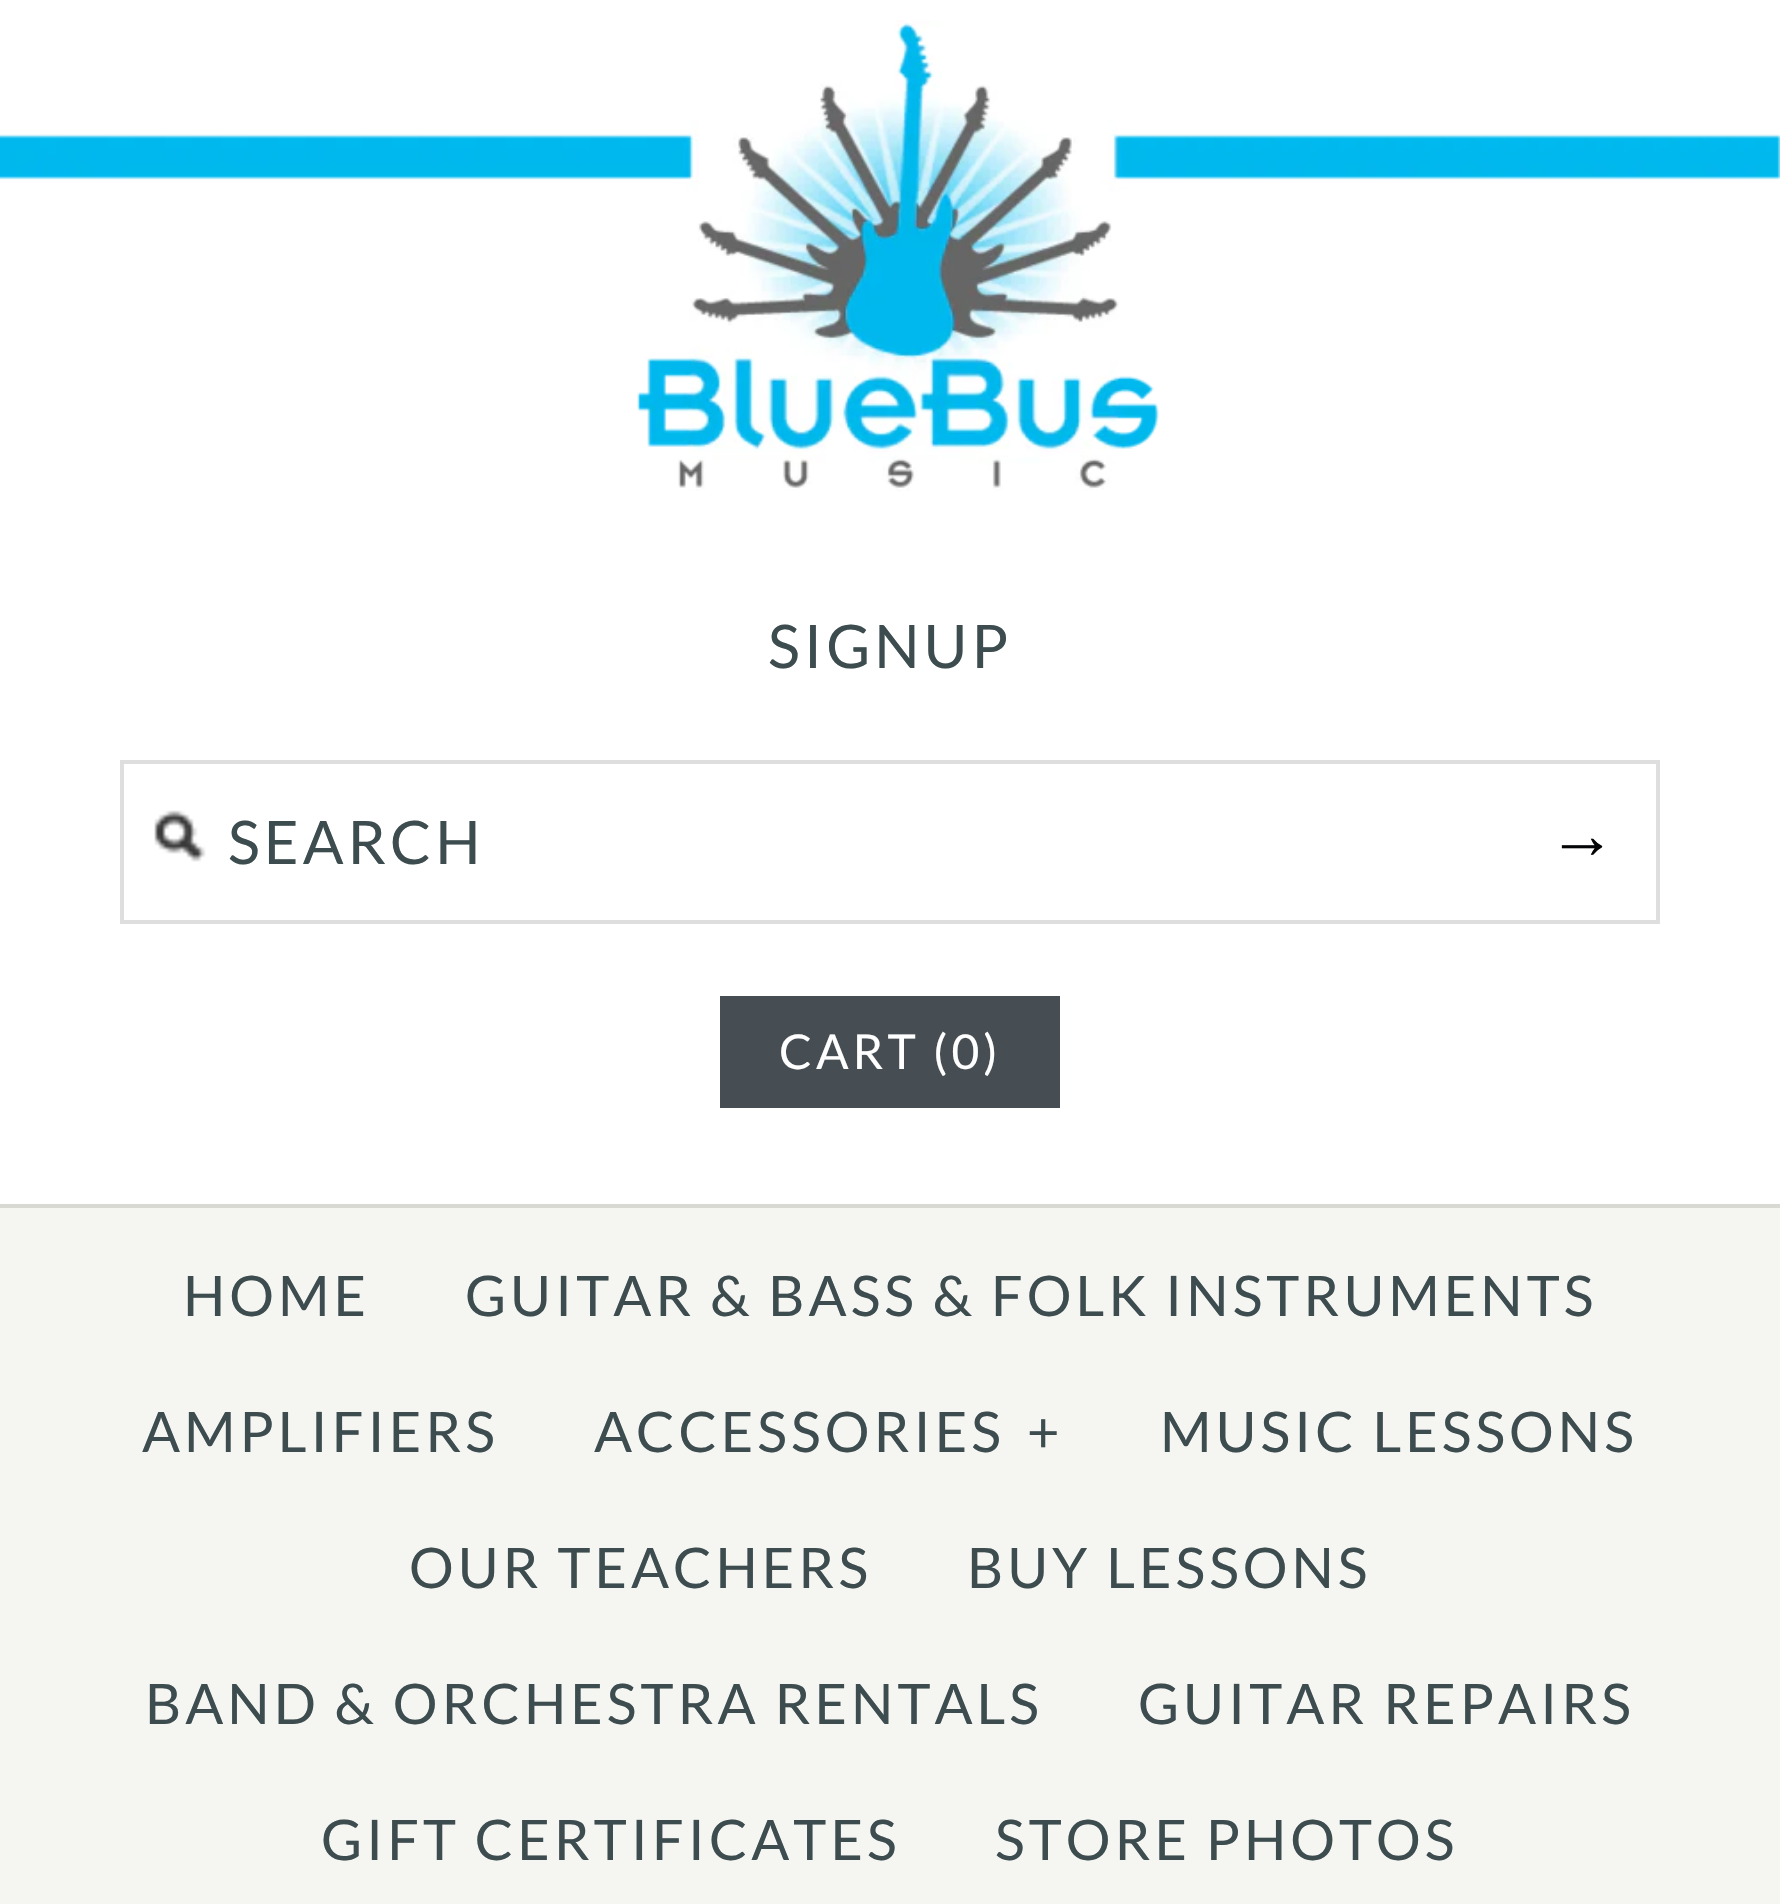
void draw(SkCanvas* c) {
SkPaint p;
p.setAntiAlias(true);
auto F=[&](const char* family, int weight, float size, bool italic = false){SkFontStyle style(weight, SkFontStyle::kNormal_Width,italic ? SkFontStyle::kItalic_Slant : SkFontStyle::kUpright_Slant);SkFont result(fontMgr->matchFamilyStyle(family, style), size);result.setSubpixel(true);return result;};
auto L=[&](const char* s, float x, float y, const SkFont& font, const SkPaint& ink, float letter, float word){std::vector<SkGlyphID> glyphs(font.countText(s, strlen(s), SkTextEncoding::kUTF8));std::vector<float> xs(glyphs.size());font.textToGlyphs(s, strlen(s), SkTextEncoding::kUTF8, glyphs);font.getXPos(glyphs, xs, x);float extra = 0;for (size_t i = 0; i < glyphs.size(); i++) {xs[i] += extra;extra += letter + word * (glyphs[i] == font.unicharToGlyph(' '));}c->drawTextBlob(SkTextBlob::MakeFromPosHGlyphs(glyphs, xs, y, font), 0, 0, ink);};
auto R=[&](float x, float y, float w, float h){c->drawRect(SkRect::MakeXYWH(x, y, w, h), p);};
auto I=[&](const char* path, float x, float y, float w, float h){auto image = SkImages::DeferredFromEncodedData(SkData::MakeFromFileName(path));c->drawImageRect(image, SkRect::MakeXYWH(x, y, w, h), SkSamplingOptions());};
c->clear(0xffffffff);
I("1.png",0,20,1780,471);
auto f1 = F("Lato",400,60);
p.setColor(0xff3d4c4f);
L("SIGNUP",768,668,f1,p,4,0);
p.setStroke(true);
p.setStrokeWidth(4);
p.setColor(0xffdedede);
c->drawRect(SkRect::MakeXYWH(122,762,1536,160),p);
I("2.png",154,810,52,52);
p.setStroke(false);
p.setColor(0xff3d4c4f);
L("SEARCH",228,864,f1,p,4,0);
auto f2 = F("Liberation Serif",400,68);
p.setColor(0xff040506);
L("→",1548,858,f2,p,4,0);
p.setColor(0xff464e54);
R(720,996,340,112);
auto f3 = F("Lato",400,48);
p.setColor(0xffffffff);
L("CART (0)",779,1069,f3,p,4,0);
p.setColor(0xfff5f5f2);
R(0,1208,1780,696);
p.setColor(0xffd9d9d4);
R(0,1204,1780,4);
auto f4 = F("Lato",400,56);
p.setColor(0xff3d4c4f);
L("HOME",183,1316,f4,p,4,0);
L("GUITAR & BASS & FOLK INSTRUMENTS",465,1316,f4,p,4,0);
L("AMPLIFIERS",142,1452,f4,p,4,0);
L("ACCESSORIES",594,1452,f4,p,4,0);
L("+",1027,1452,f4,p,4,0);
L("MUSIC LESSONS",1160,1452,f4,p,4,0);
L("OUR TEACHERS",409,1588,f4,p,4,0);
L("BUY LESSONS",967,1588,f4,p,4,0);
L("BAND & ORCHESTRA RENTALS",145,1724,f4,p,4,0);
L("GUITAR REPAIRS",1138,1724,f4,p,4,0);
L("GIFT CERTIFICATES",321,1860,f4,p,4,0);
L("STORE PHOTOS",995,1860,f4,p,4,0);
}
